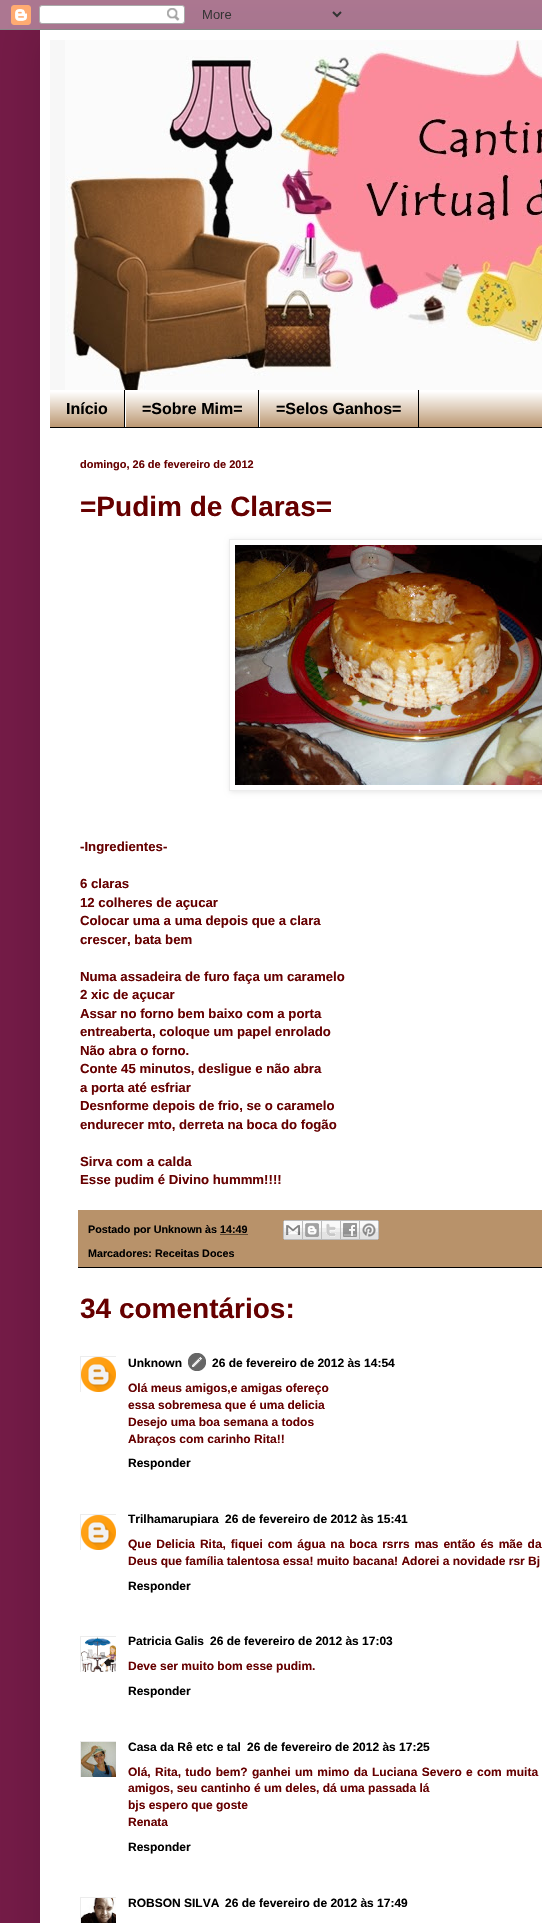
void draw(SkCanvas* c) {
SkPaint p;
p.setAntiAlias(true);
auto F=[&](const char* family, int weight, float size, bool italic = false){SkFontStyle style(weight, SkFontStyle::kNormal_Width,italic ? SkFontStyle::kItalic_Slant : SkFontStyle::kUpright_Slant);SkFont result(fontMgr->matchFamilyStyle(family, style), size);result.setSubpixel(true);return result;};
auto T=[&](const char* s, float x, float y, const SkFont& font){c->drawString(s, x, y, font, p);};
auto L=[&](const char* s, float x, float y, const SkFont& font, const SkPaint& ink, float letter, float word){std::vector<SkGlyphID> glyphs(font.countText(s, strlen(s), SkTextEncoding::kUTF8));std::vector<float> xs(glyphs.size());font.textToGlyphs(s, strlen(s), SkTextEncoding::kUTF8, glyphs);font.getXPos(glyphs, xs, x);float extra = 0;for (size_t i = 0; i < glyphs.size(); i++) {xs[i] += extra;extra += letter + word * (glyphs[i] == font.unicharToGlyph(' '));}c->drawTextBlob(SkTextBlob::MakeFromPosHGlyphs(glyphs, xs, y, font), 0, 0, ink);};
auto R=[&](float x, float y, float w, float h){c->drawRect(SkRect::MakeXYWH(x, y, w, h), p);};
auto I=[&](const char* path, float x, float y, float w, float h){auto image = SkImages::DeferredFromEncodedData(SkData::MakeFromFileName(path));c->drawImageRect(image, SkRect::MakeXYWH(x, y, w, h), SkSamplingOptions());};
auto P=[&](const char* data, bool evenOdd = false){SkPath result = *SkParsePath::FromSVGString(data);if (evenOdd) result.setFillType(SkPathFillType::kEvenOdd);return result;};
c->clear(0xff741b47);
p.setColor(0x26000000);
p.setMaskFilter(SkMaskFilter::MakeBlur(kNormal_SkBlurStyle, 20));
c->drawRect(SkRect::MakeXYWH(40,30,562,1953),p);
p.setMaskFilter(nullptr);
I("1.png",0,0,542,30);
p.setColor(0xffffffff);
R(40,30,502,1893);
p.setColor(0xfff7f7f7);
R(50,40,15,350);
I("2.png",65,40,477,350);
p.setColor(0xffb8926a);
R(50,391,492,36);
I("3.png",50,390,492,37);
p.setColor(0xff000000);
R(50,427,492,1);
R(124,390,1,37);
auto f1 = F("Liberation Sans",700,16);
T("Início",66,414,f1);
R(258,390,1,37);
p.setColor(0xffffffff);
R(125,390,1,37);
p.setColor(0xff000000);
T("=Sobre Mim=",142,414,f1);
R(418,390,1,37);
p.setColor(0xffffffff);
R(259,390,1,37);
p.setColor(0xff000000);
T("=Selos Ganhos=",276,414,f1);
auto f2 = F("Liberation Sans",700,11);
p.setColor(0xff660000);
T("domingo, 26 de fevereiro de 2012",80,468,f2);
auto f3 = F("Liberation Sans",700,28);
T("=Pudim de Claras=",80,516,f3);
c->save();
c->clipPath(P("M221 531h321v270h-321zm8 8h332v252h-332z",true),true);
p.setColor(0x1a000000);
p.setMaskFilter(SkMaskFilter::MakeBlur(kNormal_SkBlurStyle, 2.5));
c->drawRect(SkRect::MakeXYWH(230,540,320,252),p);
p.setMaskFilter(nullptr);
c->restore();
p.setStroke(true);
p.setStrokeWidth(1);
p.setColor(0xffececec);
c->drawRect(SkRect::MakeXYWH(229.5,539.5,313,251),p);
I("4.png",235,545,307,240);
auto f4 = F("Liberation Sans",700,13.2);
p.setStroke(false);
p.setColor(0xff660000);
T("-Ingredientes-",80,851,f4);
T("6 claras",80,888,f4);
T("12 colheres de açucar",80,907,f4);
T("Colocar uma a uma depois que a clara",80,925,f4);
T("crescer, bata bem",80,944,f4);
T("Numa assadeira de furo faça um caramelo",80,981,f4);
T("2 xic de açucar",80,999,f4);
T("Assar no forno bem baixo com a porta",80,1018,f4);
T("entreaberta, coloque um papel enrolado",80,1036,f4);
T("Não abra o forno.",80,1055,f4);
T("Conte 45 minutos, desligue e não abra",80,1073,f4);
T("a porta até esfriar",80,1092,f4);
T("Desnforme depois de frio, se o caramelo",80,1110,f4);
T("endurecer mto, derreta na boca do fogão",80,1129,f4);
T("Sirva com a calda",80,1166,f4);
T("Esse pudim é Divino hummm!!!!",80,1184,f4);
p.setColor(0xffb8926a);
R(78,1210,464,57);
p.setColor(0xff000000);
R(78,1267,464,1);
auto f5 = F("Liberation Sans",700,10.75);
T("Postado por Unknown às 14:49",88,1233,f5);
I("5.png",283,1220,20,20);
I("6.png",303,1220,19,20);
I("7.png",322,1220,19,20);
I("8.png",341,1220,19,20);
I("9.png",360,1220,19,20);
p.setStroke(true);
p.setPathEffect(SkDashPathEffect::Make({{1,1}}, 0));
c->drawPath(P("M220.5 1234.5h27.5"),p);
p.setPathEffect(nullptr);
p.setStroke(false);
T("Marcadores: Receitas Doces",88,1257,f5);
p.setColor(0xff660000);
T("34 comentários:",80,1318,f3);
c->save();
c->clipRect(SkRect::MakeXYWH(80,1356,36,36));
p.setStroke(true);
p.setColor(0xffececec);
c->drawRect(SkRect::MakeXYWH(80.5,1356.5,36,36),p);
c->restore();
I("10.png",81,1357,35,35);
auto f6 = F("Liberation Sans",700,12);
p.setStroke(false);
p.setColor(0xff000000);
T("Unknown",128,1367,f6);
I("11.png",188,1353,18,18);
T("26 de fevereiro de 2012 às 14:54",212,1367,f6);
p.setColor(0xff660000);
T("Olá meus amigos,e amigas ofereço",128,1392,f6);
T("essa sobremesa que é uma delicia",128,1409,f6);
T("Desejo uma boa semana a todos",128,1426,f6);
T("Abraços com carinho Rita!!",128,1443,f6);
p.setColor(0xff000000);
T("Responder",128,1467,f6);
c->save();
c->clipRect(SkRect::MakeXYWH(80,1514,36,36));
p.setStroke(true);
p.setColor(0xffececec);
c->drawRect(SkRect::MakeXYWH(80.5,1514.5,36,36),p);
c->restore();
I("10.png",81,1515,35,35);
p.setStroke(false);
p.setColor(0xff000000);
T("Trilhamarupiara",128,1523,f6);
T("26 de fevereiro de 2012 às 15:41",225,1523,f6);
p.setColor(0xff660000);
L("Que Delicia Rita, fiquei com água na boca rsrrs mas então és mãe da",128,1548,f6,p,0,1.6);
T("Deus que família talentosa essa! muito bacana! Adorei a novidade rsr Bj",128,1565,f6);
p.setColor(0xff000000);
T("Responder",128,1590,f6);
c->save();
c->clipRect(SkRect::MakeXYWH(80,1636,36,36));
p.setStroke(true);
p.setColor(0xffececec);
c->drawRect(SkRect::MakeXYWH(80.5,1636.5,37,37),p);
c->restore();
I("12.png",81,1637,35,35);
p.setStroke(false);
p.setColor(0xff000000);
T("Patricia Galis",128,1645,f6);
T("26 de fevereiro de 2012 às 17:03",210,1645,f6);
p.setColor(0xff660000);
T("Deve ser muito bom esse pudim.",128,1670,f6);
p.setColor(0xff000000);
T("Responder",128,1695,f6);
c->save();
c->clipRect(SkRect::MakeXYWH(80,1741,36,36));
p.setStroke(true);
p.setColor(0xffececec);
c->drawRect(SkRect::MakeXYWH(80.5,1741.5,37,37),p);
c->restore();
I("13.png",81,1742,35,35);
p.setStroke(false);
p.setColor(0xff000000);
T("Casa da Rê etc e tal",128,1751,f6);
T("26 de fevereiro de 2012 às 17:25",247,1751,f6);
p.setColor(0xff660000);
L("Olá, Rita, tudo bem? ganhei um mimo da Luciana Severo e com muita",128,1776,f6,p,0,1);
T("amigos, seu cantinho é um deles, dá uma passada lá",128,1792,f6);
T("bjs espero que goste",128,1809,f6);
T("Renata",128,1826,f6);
p.setColor(0xff000000);
T("Responder",128,1851,f6);
c->save();
c->clipRect(SkRect::MakeXYWH(80,1897,36,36));
p.setStroke(true);
p.setColor(0xffececec);
c->drawRect(SkRect::MakeXYWH(80.5,1897.5,37,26),p);
c->restore();
I("14.png",81,1898,35,25);
p.setStroke(false);
p.setColor(0xff000000);
T("ROBSON SILVA",128,1907,f6);
T("26 de fevereiro de 2012 às 17:49",225,1907,f6);
}
